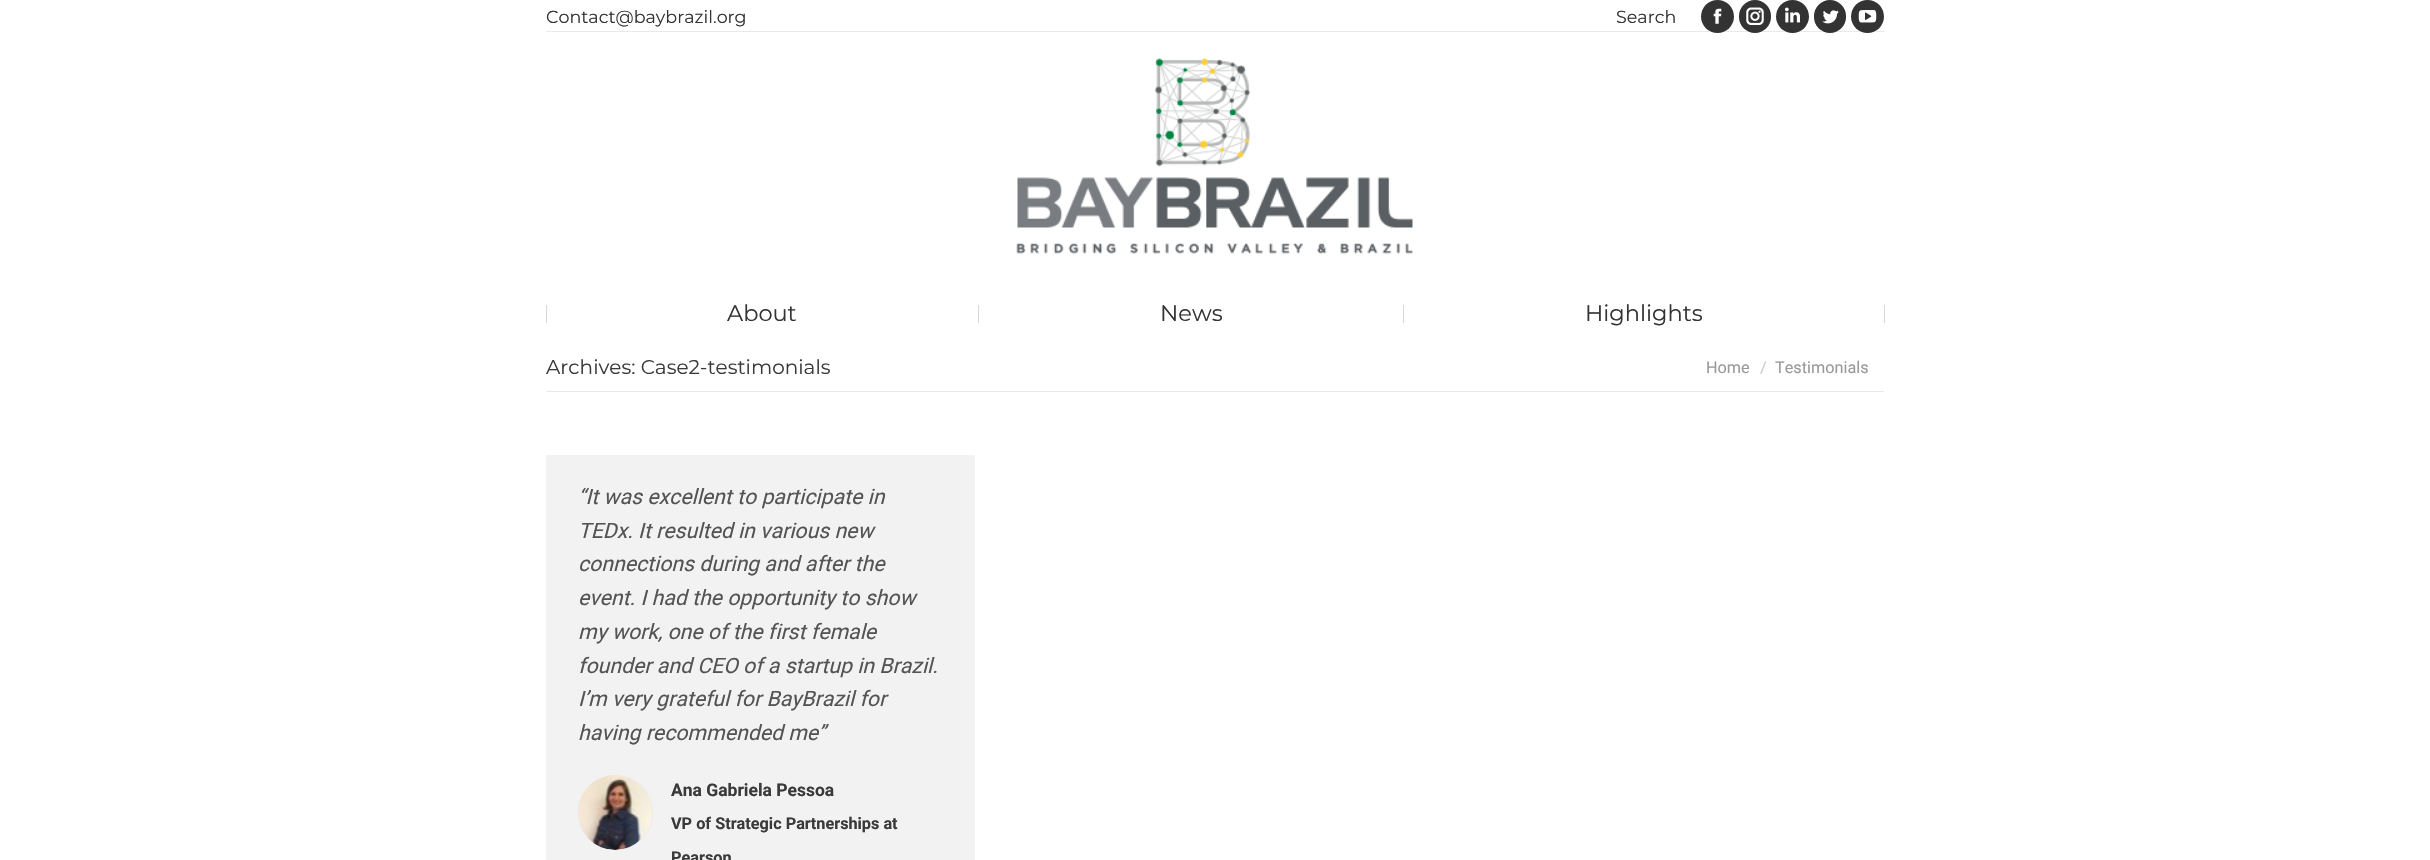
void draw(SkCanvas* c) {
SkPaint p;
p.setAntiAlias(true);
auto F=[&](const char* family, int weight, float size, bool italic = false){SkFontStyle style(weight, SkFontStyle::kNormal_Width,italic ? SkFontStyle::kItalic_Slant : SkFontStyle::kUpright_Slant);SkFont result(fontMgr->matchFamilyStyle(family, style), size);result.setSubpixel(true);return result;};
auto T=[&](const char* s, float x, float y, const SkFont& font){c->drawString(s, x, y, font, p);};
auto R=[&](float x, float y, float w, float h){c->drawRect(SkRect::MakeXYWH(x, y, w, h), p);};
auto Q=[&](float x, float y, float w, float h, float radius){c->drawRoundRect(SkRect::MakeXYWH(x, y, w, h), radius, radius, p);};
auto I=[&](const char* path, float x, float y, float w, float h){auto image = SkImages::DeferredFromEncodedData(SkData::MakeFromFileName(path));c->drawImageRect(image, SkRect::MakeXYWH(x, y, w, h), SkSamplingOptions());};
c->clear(0xffffffff);
auto f1 = F("Montserrat",400,17.5);
p.setColor(0xff333333);
T("Contact@baybrazil.org",546,23,f1);
T("Search",1616,23,f1);
c->drawCircle(1717.5,16.5,16.5,p);
I("1.png",1713,8,9,16);
Q(1739,0,32,33,16);
I("2.png",1746,7,18,18);
c->drawCircle(1792.5,16.5,16.5,p);
I("3.png",1785,7,15,16);
Q(1814,0,32,33,16);
I("4.png",1822,10,17,14);
c->drawCircle(1867.5,16.5,16.5,p);
I("5.png",1858,10,19,13);
p.setColor(0x1a333333);
R(546,31,1338,1);
I("6.png",1016,58,397,196);
p.setColor(0xffd8d8d8);
R(546,305,1,18);
auto f2 = F("Montserrat",400,22.5);
p.setColor(0xff333333);
T("About",727,321,f2);
p.setColor(0xffd8d8d8);
R(978,305,1,18);
p.setColor(0xff333333);
T("News",1160,321,f2);
p.setColor(0xffd8d8d8);
R(1403,305,1,18);
p.setColor(0xff333333);
T("Highlights",1585,321,f2);
p.setColor(0xffd8d8d8);
R(1884,305,1,18);
auto f3 = F("Montserrat",400,20);
p.setColor(0xff3a3a3a);
T("Archives: Case2-testimonials",546,374,f3);
auto f4 = F("Roboto",400,16.25);
p.setColor(0xff999999);
T("Home",1706,373,f4);
p.setColor(0xffcccccc);
T("/",1760,373,f4);
p.setColor(0xff999999);
T("Testimonials",1775,373,f4);
p.setColor(0xffe9e9e9);
R(546,391,1338,1);
p.setColor(0xfff2f2f2);
R(546,455,429,405);
auto f5 = F("Roboto",400,21.25,true);
p.setColor(0xff545454);
T("“It was excellent to participate in",578,504,f5);
T("TEDx. It resulted in various new",578,538,f5);
T("connections during and after the",578,571,f5);
T("event. I had the opportunity to show",578,605,f5);
T("my work, one of the first female",578,639,f5);
T("founder and CEO of a startup in Brazil.",578,673,f5);
T("I’m very grateful for BayBrazil for",578,706,f5);
T("having recommended me”",578,740,f5);
p.setColor(0xffeaeaea);
c->drawCircle(615.5,812.5,37.5,p);
I("7.png",577,775,76,75);
auto f6 = F("Roboto",700,17.5);
p.setColor(0xff3a3a3a);
T("Ana Gabriela Pessoa",671,796,f6);
auto f7 = F("Roboto",700,16.25);
T("VP of Strategic Partnerships at",671,829,f7);
T("Pearson",671,863,f7);
}
